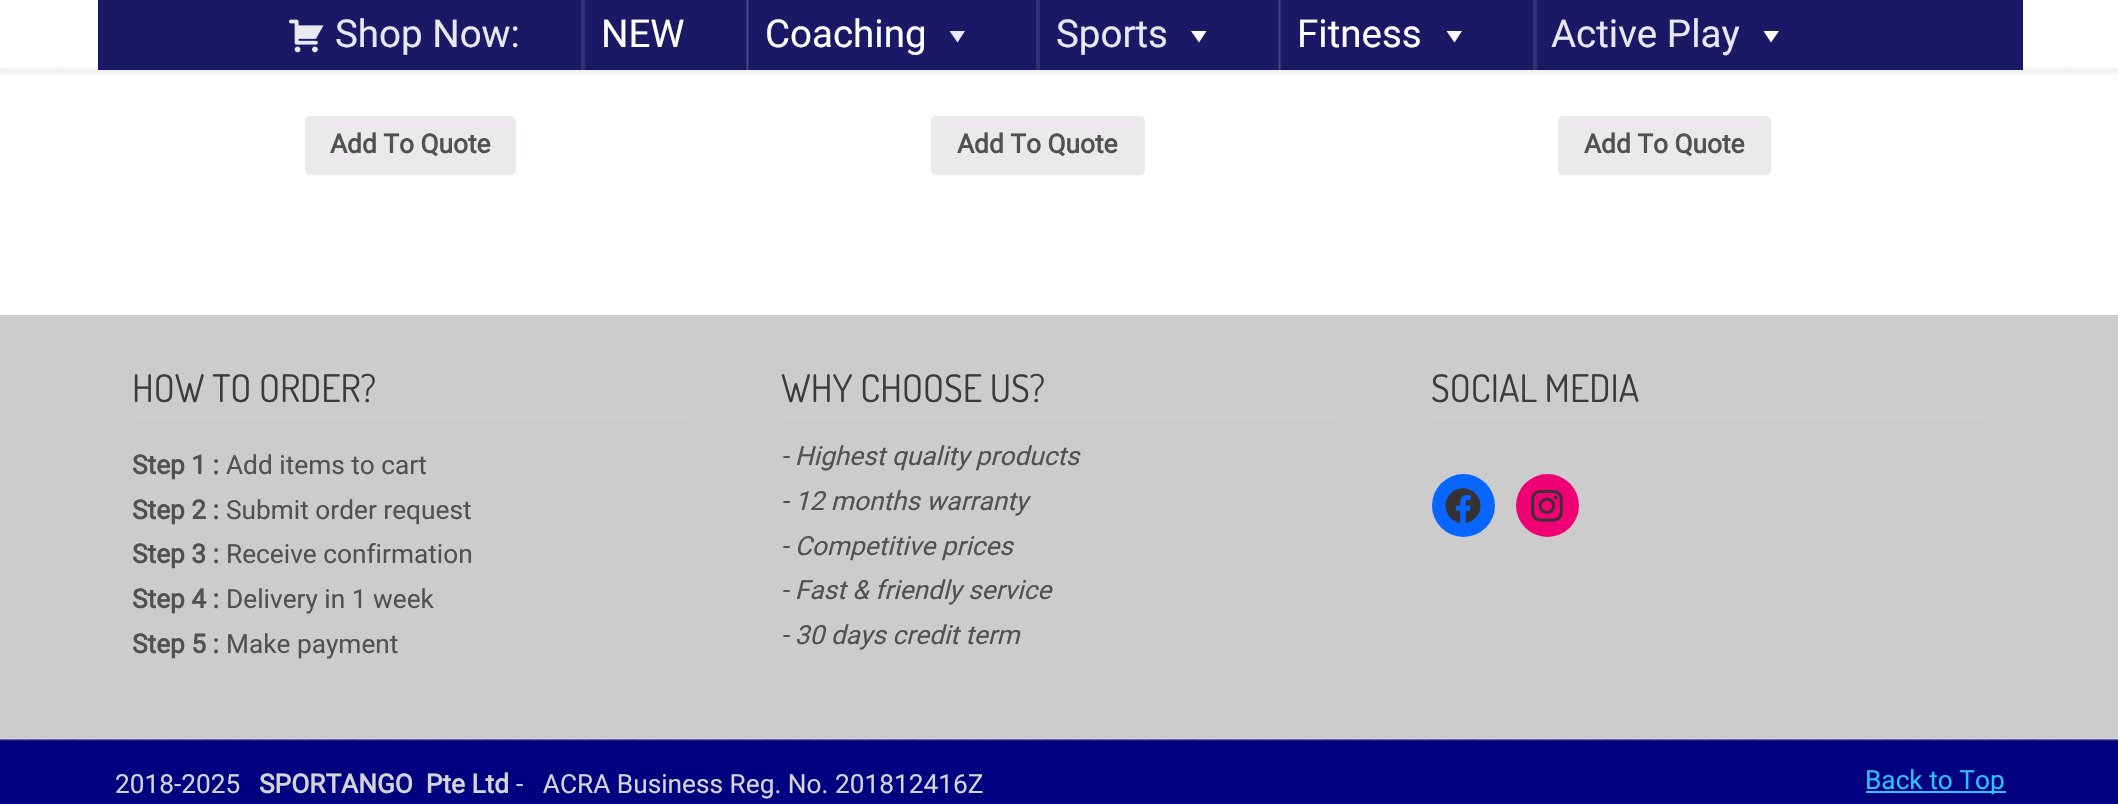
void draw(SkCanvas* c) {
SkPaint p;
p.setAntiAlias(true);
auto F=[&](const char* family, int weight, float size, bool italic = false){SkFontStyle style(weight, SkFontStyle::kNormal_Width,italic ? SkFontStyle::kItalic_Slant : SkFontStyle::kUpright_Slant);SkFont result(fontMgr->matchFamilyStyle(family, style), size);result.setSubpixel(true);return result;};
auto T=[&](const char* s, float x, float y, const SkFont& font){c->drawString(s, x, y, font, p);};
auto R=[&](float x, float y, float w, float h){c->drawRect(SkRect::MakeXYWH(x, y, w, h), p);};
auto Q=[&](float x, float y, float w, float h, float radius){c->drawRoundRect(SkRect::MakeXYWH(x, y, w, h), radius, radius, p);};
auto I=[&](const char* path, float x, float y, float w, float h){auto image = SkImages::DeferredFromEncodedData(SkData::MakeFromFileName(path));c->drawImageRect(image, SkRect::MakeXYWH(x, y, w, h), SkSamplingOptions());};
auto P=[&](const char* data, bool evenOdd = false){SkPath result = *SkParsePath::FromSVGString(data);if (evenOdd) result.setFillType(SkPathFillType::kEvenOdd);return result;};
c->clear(0xffffffff);
p.setColor(0xff191965);
R(98,0,1925,70);
c->save();
c->clipRect(SkRect::MakeXYWH(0,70,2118,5));
p.setColor(0x261a1a1a);
p.setMaskFilter(SkMaskFilter::MakeBlur(kNormal_SkBlurStyle, 4.5));
c->drawRect(SkRect::MakeXYWH(0,0,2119,70),p);
p.setMaskFilter(nullptr);
c->restore();
I("1.png",289,19,35,34);
auto f1 = F("Roboto",400,38.5);
p.setColor(0xffe8e8f0);
T("Shop Now:",335,47,f1);
I("2.png",0,67,2118,3);
p.setColor(0xff303074);
R(581,0,4,70);
p.setColor(0xffffffff);
T("NEW",601,47,f1);
p.setColor(0xff303074);
R(747,0,2,70);
p.setColor(0x1affffff);
R(746,0,2,70);
p.setColor(0xffffffff);
T("Coaching",765,47,f1);
p.setColor(0xffe8e8f0);
c->drawPath(P("M965 31l-7.5 11.5l-8-11.5z"),p);
p.setColor(0xff303074);
R(1036,0,4,70);
p.setColor(0xffe8e8f0);
T("Sports",1056,47,f1);
p.setColor(0xffffffff);
c->drawPath(P("M1206.5 31l-7.5 11.5l-8-11.5z"),p);
p.setColor(0xff303074);
R(1279,0,2,70);
p.setColor(0x1affffff);
R(1278,0,2,70);
p.setColor(0xffffffff);
T("Fitness",1297,47,f1);
c->drawPath(P("M1462 31l-7.5 11.5l-8-11.5z"),p);
p.setColor(0xff303074);
R(1533,0,4,70);
p.setColor(0xffe8e8f0);
T("Active Play",1551,47,f1);
p.setColor(0xffffffff);
c->drawPath(P("M1779 31l-8 11.5l-7.5-11.5z"),p);
p.setColor(0xffebe9eb);
Q(305,116,211,59,5);
auto f2 = F("Roboto",700,26.25);
p.setColor(0xff515151);
T("Add To Quote",330,153,f2);
p.setColor(0xffebe9eb);
Q(931,116,214,59,5);
p.setColor(0xff515151);
T("Add To Quote",957,153,f2);
p.setColor(0xffebe9eb);
Q(1558,116,213,59,5);
p.setColor(0xff515151);
T("Add To Quote",1584,153,f2);
p.setColor(0xffcccccc);
R(0,315,2118,424);
p.setColor(0xffc9c9c9);
R(133,420,557,3);
auto f3 = F("Dosis",400,38);
p.setColor(0xff3b3b3b);
T("HOW TO ORDER?",132,402,f3);
p.setColor(0xff515151);
T("Step 1 :",132,474,f2);
auto f4 = F("Roboto",400,26.25);
T("Add items to cart",226,474,f4);
T("Step 2 :",132,519,f2);
T("Submit order request",226,519,f4);
T("Step 3 :",132,563,f2);
T("Receive confirmation",226,563,f4);
T("Step 4 :",132,608,f2);
T("Delivery in 1 week",226,608,f4);
T("Step 5 :",132,653,f2);
T("Make payment",226,653,f4);
p.setColor(0xffc9c9c9);
R(782,420,557,3);
p.setColor(0xff3b3b3b);
T("WHY CHOOSE US?",781,402,f3);
auto f5 = F("Roboto",400,26.25,true);
p.setColor(0xff515151);
T("- Highest quality products",781,465,f5);
T("- 12 months warranty",781,510,f5);
T("- Competitive prices",781,555,f5);
T("- Fast & friendly service",781,599,f5);
T("- 30 days credit term",781,644,f5);
p.setColor(0xffc9c9c9);
R(1431,420,557,3);
p.setColor(0xff3b3b3b);
T("SOCIAL MEDIA",1431,402,f3);
p.setColor(0xff0866ff);
c->drawCircle(1463.5,505.5,31.5,p);
I("3.png",1445,488,36,35);
p.setColor(0xfff00075);
c->drawCircle(1547.5,505.5,31.5,p);
I("4.png",1531,490,32,32);
p.setColor(0xff000080);
R(0,739,2118,65);
I("5.png",0,738,2118,4);
p.setColor(0xffd4d4d4);
T("2018-2025",115,793,f4);
T("SPORTANGO  Pte Ltd",259,793,f2);
T("-   ACRA Business Reg. No. 201812416Z",516,793,f4);
p.setColor(0xff26c5ff);
R(1866,791,140,2);
T("Back to Top",1865,789,f4);
}
